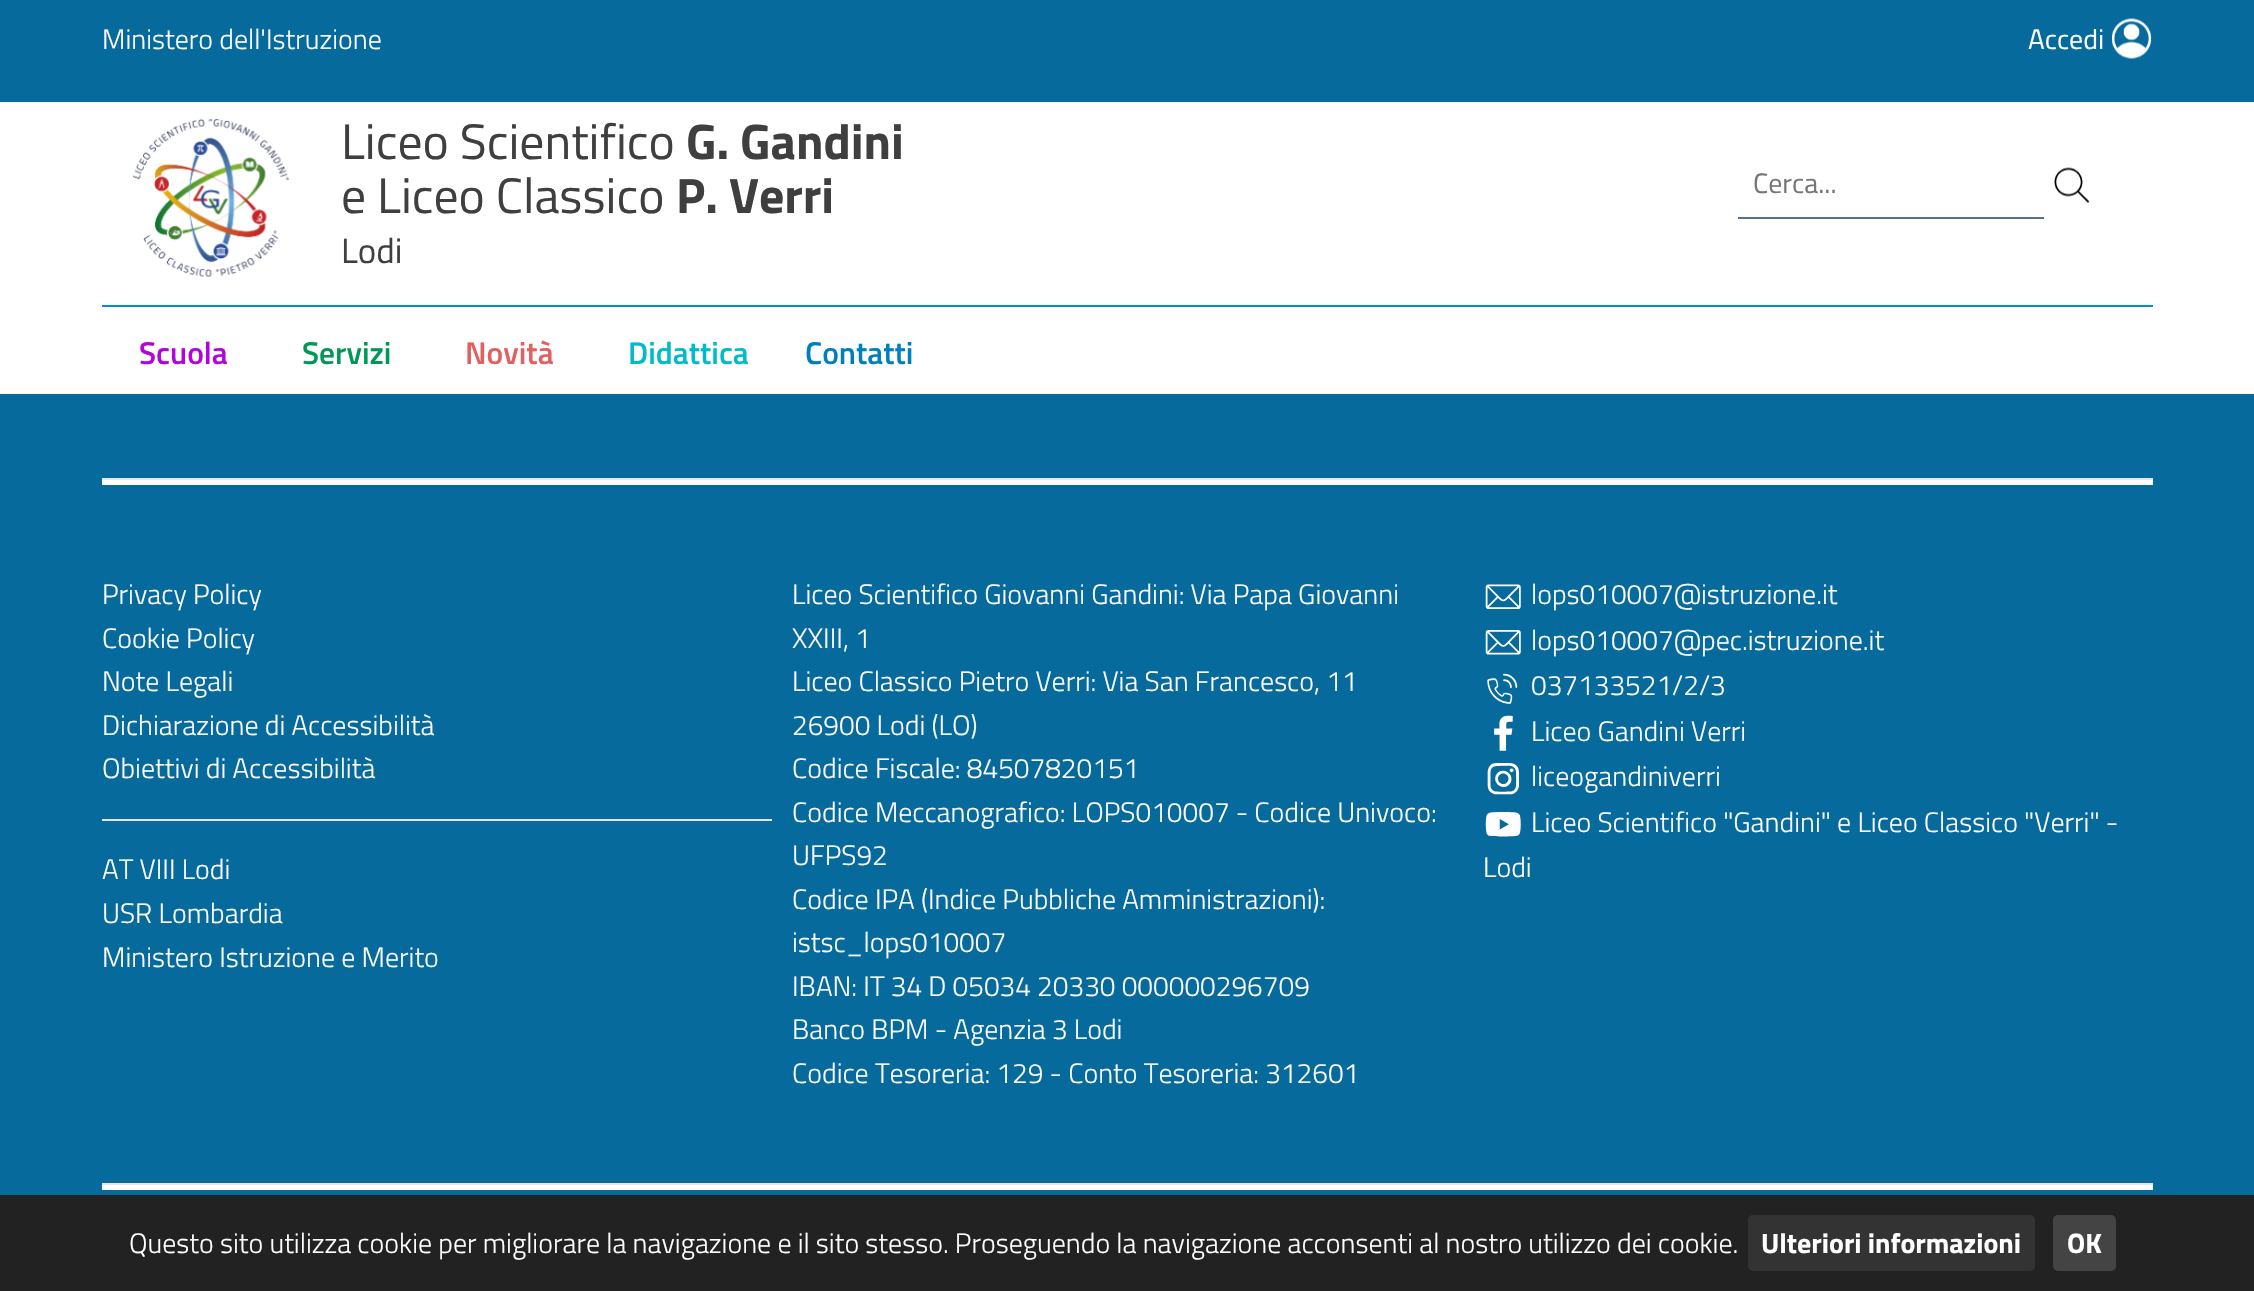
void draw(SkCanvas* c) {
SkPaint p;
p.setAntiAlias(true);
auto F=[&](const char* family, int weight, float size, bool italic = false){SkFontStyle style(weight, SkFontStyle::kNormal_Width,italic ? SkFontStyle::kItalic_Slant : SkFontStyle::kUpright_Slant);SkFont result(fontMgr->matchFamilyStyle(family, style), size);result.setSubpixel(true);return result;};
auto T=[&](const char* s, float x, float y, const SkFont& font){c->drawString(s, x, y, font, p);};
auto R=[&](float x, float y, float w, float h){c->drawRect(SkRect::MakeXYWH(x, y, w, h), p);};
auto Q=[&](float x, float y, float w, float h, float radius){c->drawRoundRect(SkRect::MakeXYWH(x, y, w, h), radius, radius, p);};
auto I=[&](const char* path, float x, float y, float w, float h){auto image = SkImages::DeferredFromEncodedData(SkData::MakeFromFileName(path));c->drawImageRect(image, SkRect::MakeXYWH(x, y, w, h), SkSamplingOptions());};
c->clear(0xff066a9c);
auto f1 = F("Titillium Web",300,28);
p.setColor(0xffffffff);
T("Ministero dell'Istruzione",102,49,f1);
auto f2 = F("Titillium Web",400,28);
T("Accedi",2028,49,f2);
I("1.png",2112,18,40,41);
R(0,102,2254,292);
I("2.png",133,118,156,159);
auto f3 = F("Titillium Web",400,49.75);
p.setColor(0xff3f3f3f);
T("Liceo Scientifico",341,159,f3);
auto f4 = F("Titillium Web",700,49.75);
T("G. Gandini",686,159,f4);
T("e Liceo Classico",341,213,f3);
T("P. Verri",676,213,f4);
auto f5 = F("Titillium Web",400,35);
T("Lodi",341,263,f5);
p.setColor(0xff5c6f82);
R(1738,217,306,2);
p.setColor(0xff757575);
T("Cerca...",1753,193,f2);
I("3.png",2054,167,36,37);
p.setColor(0xff028cd1);
R(102,305,2051,2);
auto f6 = F("Titillium Web",600,31.5);
p.setColor(0xffb205dd);
T("Scuola",139,364,f6);
p.setColor(0xff009757);
T("Servizi",302,364,f6);
p.setColor(0xffe26060);
T("Novità",465,364,f6);
p.setColor(0xff00bcc8);
T("Didattica",628,364,f6);
p.setColor(0xff007fbe);
T("Contatti",805,364,f6);
p.setColor(0xffffffff);
R(102,480,2051,5);
p.setColor(0xffe6e6e6);
R(102,478,2051,2);
p.setColor(0xffffffff);
T("Privacy Policy",102,604,f1);
T("Cookie Policy",102,648,f1);
T("Note Legali",102,691,f1);
T("Dichiarazione di Accessibilità",102,735,f1);
T("Obiettivi di Accessibilità",102,778,f1);
p.setColor(0xffe6e6e6);
R(102,819,670,2);
p.setColor(0xffffffff);
T("AT VIII Lodi",102,879,f1);
T("USR Lombardia",102,923,f1);
T("Ministero Istruzione e Merito",102,967,f1);
T("Liceo Scientifico Giovanni Gandini: Via Papa Giovanni",792,604,f1);
T("XXIII, 1",792,648,f1);
T("Liceo Classico Pietro Verri: Via San Francesco, 11",792,691,f1);
T("26900 Lodi (LO)",792,735,f1);
T("Codice Fiscale: 84507820151",792,778,f1);
T("Codice Meccanografico: LOPS010007 - Codice Univoco:",792,822,f1);
T("UFPS92",792,865,f1);
T("Codice IPA (Indice Pubbliche Amministrazioni):",792,909,f1);
T("istsc_lops010007",792,952,f1);
T("IBAN: IT 34 D 05034 20330 000000296709",792,996,f1);
T("Banco BPM - Agenzia 3 Lodi",792,1039,f1);
T("Codice Tesoreria: 129 - Conto Tesoreria: 312601",792,1083,f1);
I("4.png",1485,584,36,25);
T("lops010007@istruzione.it",1531,604,f1);
I("5.png",1485,630,36,25);
T("lops010007@pec.istruzione.it",1531,650,f1);
I("6.png",1487,673,31,31);
T("037133521/2/3",1531,695,f1);
I("7.png",1494,715,19,36);
T("Liceo Gandini Verri",1531,741,f1);
I("8.png",1487,763,32,32);
T("liceogandiniverri",1531,786,f1);
I("9.png",1485,812,36,25);
T("Liceo Scientifico \"Gandini\" e Liceo Classico \"Verri\" -",1531,832,f1);
T("Lodi",1483,877,f1);
R(102,1185,2051,5);
p.setColor(0xffe6e6e6);
R(102,1183,2051,2);
p.setColor(0xff222222);
R(0,1195,2254,96);
p.setColor(0xffffffff);
T("Questo sito utilizza cookie per migliorare la navigazione e il sito stesso. Proseguendo la navigazione acconsenti al nostro utilizzo dei cookie.",129,1253,f1);
p.setColor(0xff333333);
Q(1748,1215,287,56,5);
auto f7 = F("Titillium Web",700,28);
p.setColor(0xffffffff);
T("Ulteriori informazioni",1761,1253,f7);
p.setColor(0xff444444);
Q(2053,1215,63,56,5);
p.setColor(0xffffffff);
T("OK",2067,1253,f7);
}
